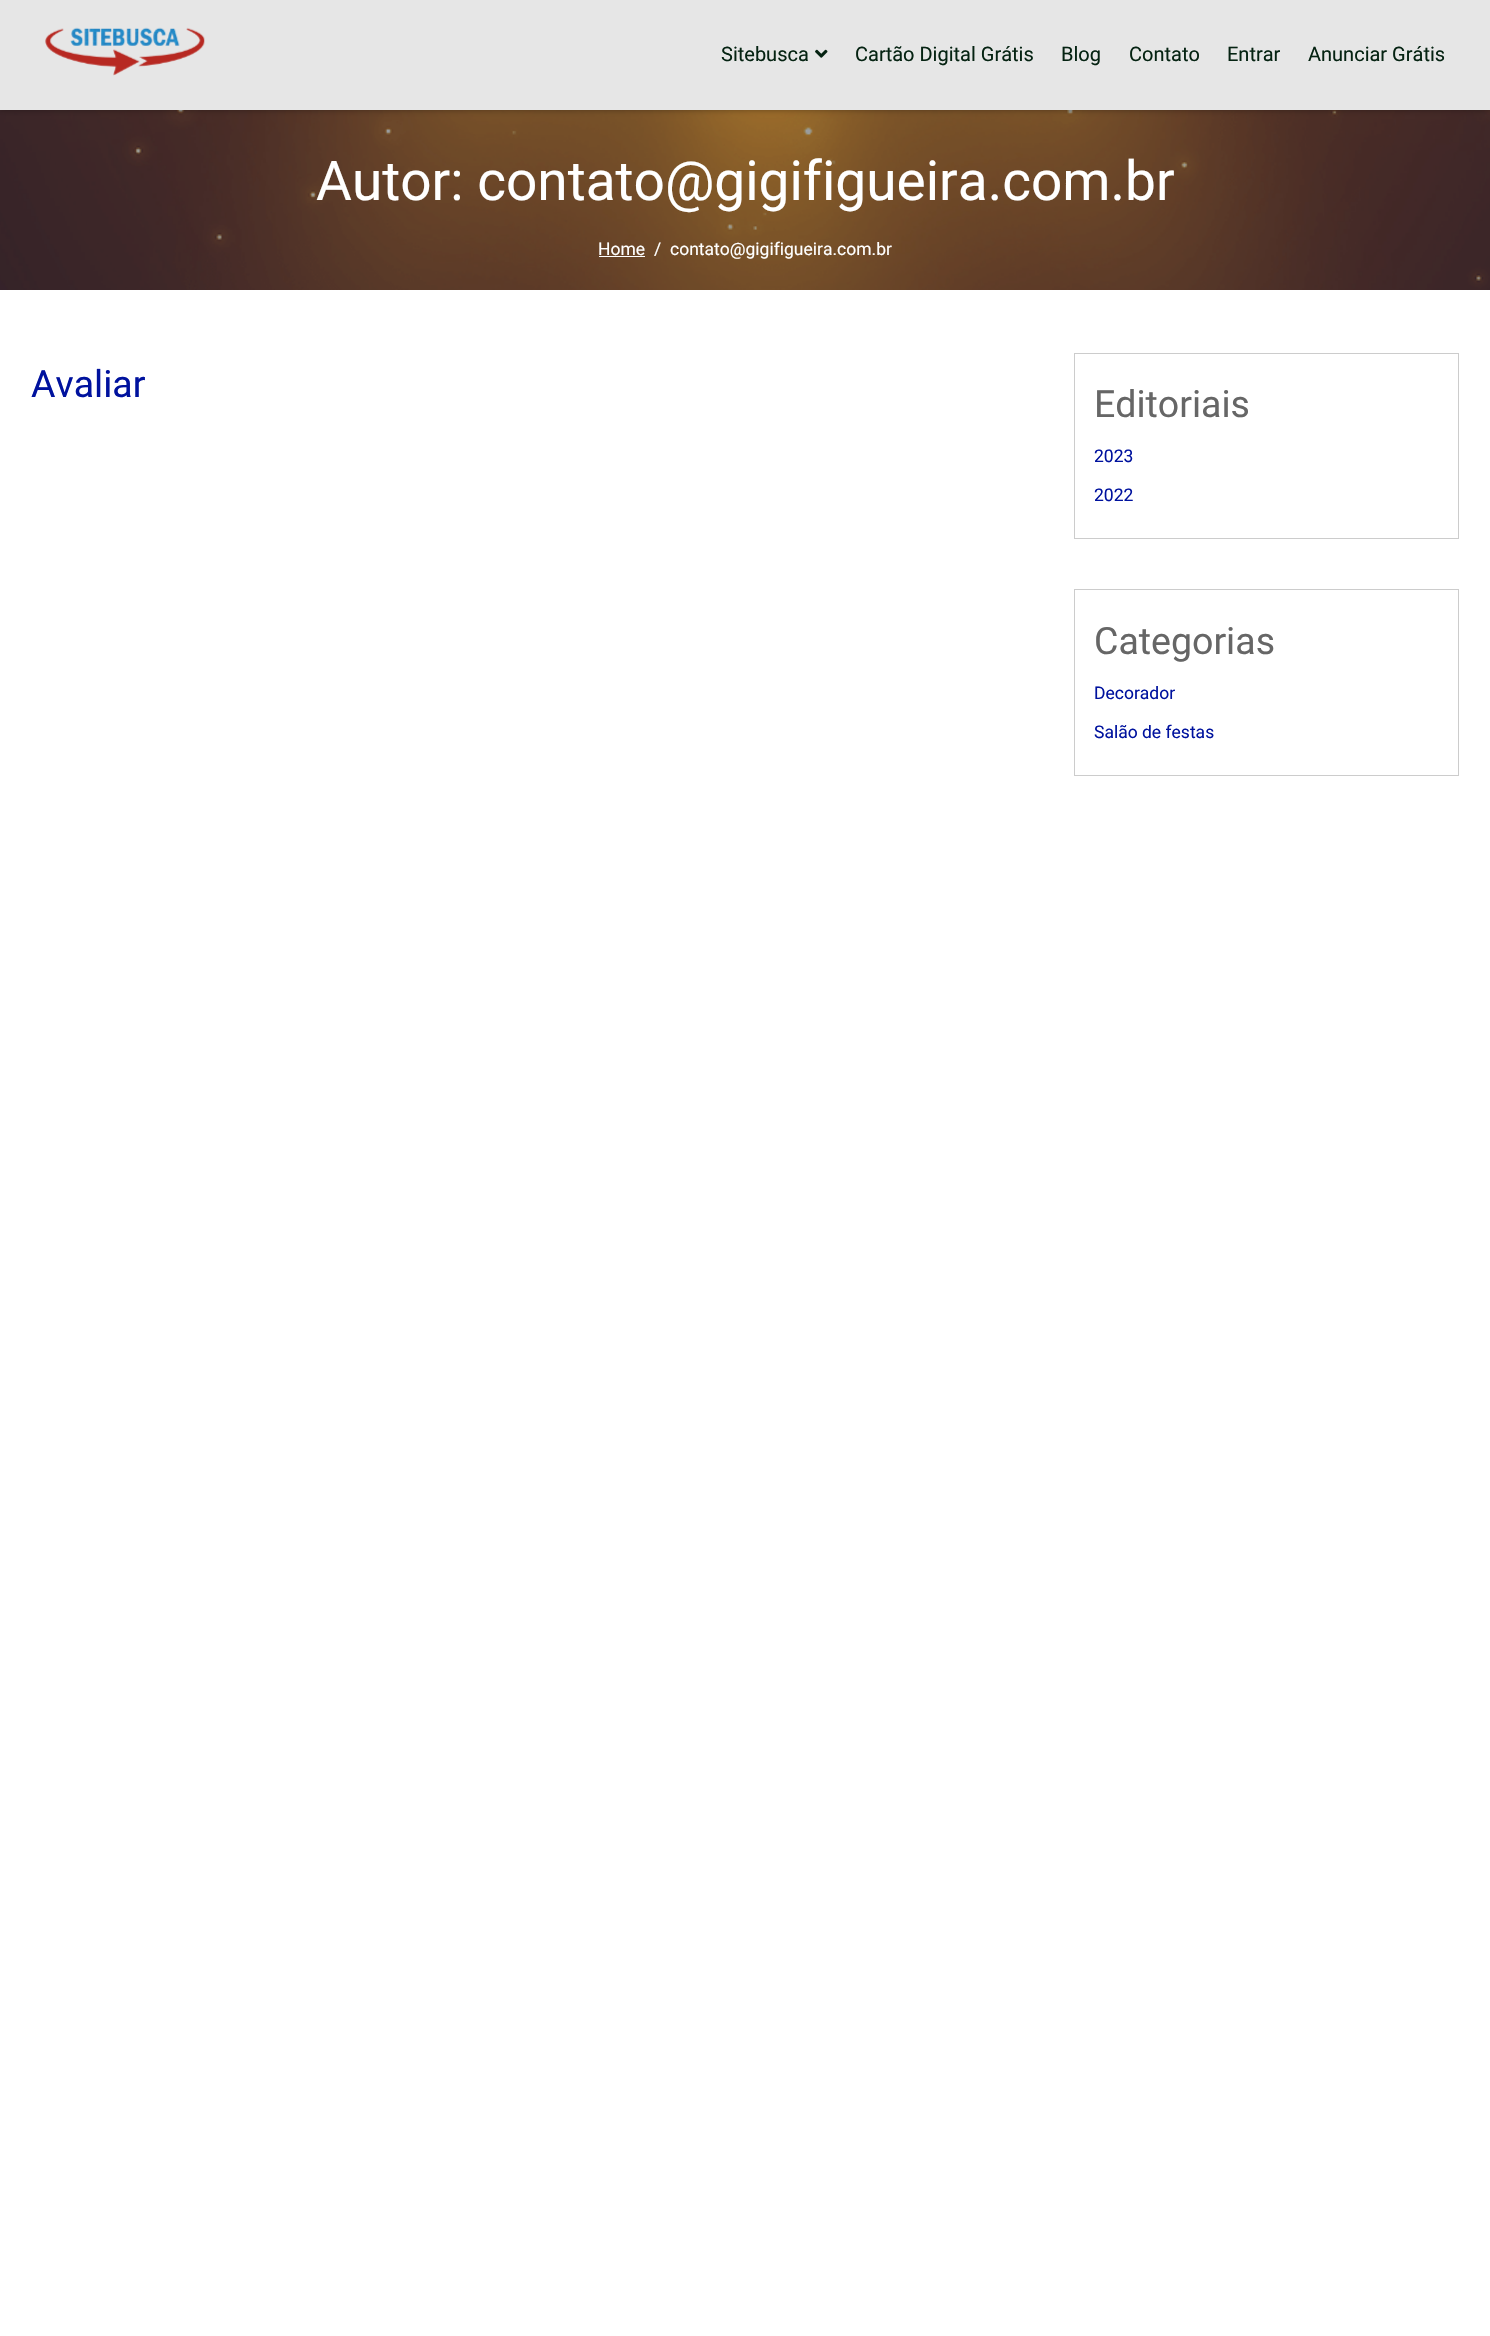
void draw(SkCanvas* c) {
SkPaint p;
p.setAntiAlias(true);
auto F=[&](const char* family, int weight, float size, bool italic = false){SkFontStyle style(weight, SkFontStyle::kNormal_Width,italic ? SkFontStyle::kItalic_Slant : SkFontStyle::kUpright_Slant);SkFont result(fontMgr->matchFamilyStyle(family, style), size);result.setSubpixel(true);return result;};
auto T=[&](const char* s, float x, float y, const SkFont& font){c->drawString(s, x, y, font, p);};
auto R=[&](float x, float y, float w, float h){c->drawRect(SkRect::MakeXYWH(x, y, w, h), p);};
auto I=[&](const char* path, float x, float y, float w, float h){auto image = SkImages::DeferredFromEncodedData(SkData::MakeFromFileName(path));c->drawImageRect(image, SkRect::MakeXYWH(x, y, w, h), SkSamplingOptions());};
c->clear(0xffffffff);
I("3.png",0,110,1490,180);
p.setColor(0x57000000);
p.setMaskFilter(SkMaskFilter::MakeBlur(kNormal_SkBlurStyle, 3));
c->drawRect(SkRect::MakeXYWH(0,0,1490,110),p);
p.setMaskFilter(nullptr);
p.setColor(0xffe6e6e6);
R(0,0,1490,110);
I("1.png",45,27,160,49);
auto f1 = F("Roboto",400,20);
p.setColor(0xff052312);
T("Sitebusca",721,61,f1);
I("2.png",815,49,13,9);
T("Cartão Digital Grátis",855,61,f1);
T("Blog",1061,61,f1);
T("Contato",1129,61,f1);
T("Entrar",1227,61,f1);
T("Anunciar Grátis",1308,61,f1);
auto f2 = F("Roboto",400,55);
p.setColor(0xffffffff);
T("Autor: contato@gigifigueira.com.br",316,200,f2);
auto f3 = F("Roboto",400,17.5);
T("Home",598,255,f3);
R(599,256,46,1);
T("/",654,255,f3);
T("contato@gigifigueira.com.br",670,255,f3);
auto f4 = F("Roboto",400,37.5);
p.setColor(0xff00129e);
T("Avaliar",31,397,f4);
p.setStroke(true);
p.setStrokeWidth(1);
p.setColor(0xffcccccc);
c->drawRect(SkRect::MakeXYWH(1074.5,353.5,384,185),p);
p.setStroke(false);
p.setColor(0xff666666);
T("Editoriais",1094,417,f4);
p.setColor(0xff00129e);
T("2023",1094,462,f3);
T("2022",1094,501,f3);
p.setStroke(true);
p.setColor(0xffcccccc);
c->drawRect(SkRect::MakeXYWH(1074.5,589.5,384,186),p);
p.setStroke(false);
p.setColor(0xff666666);
T("Categorias",1094,654,f4);
p.setColor(0xff00129e);
T("Decorador",1094,699,f3);
T("Salão de festas",1094,738,f3);
}
